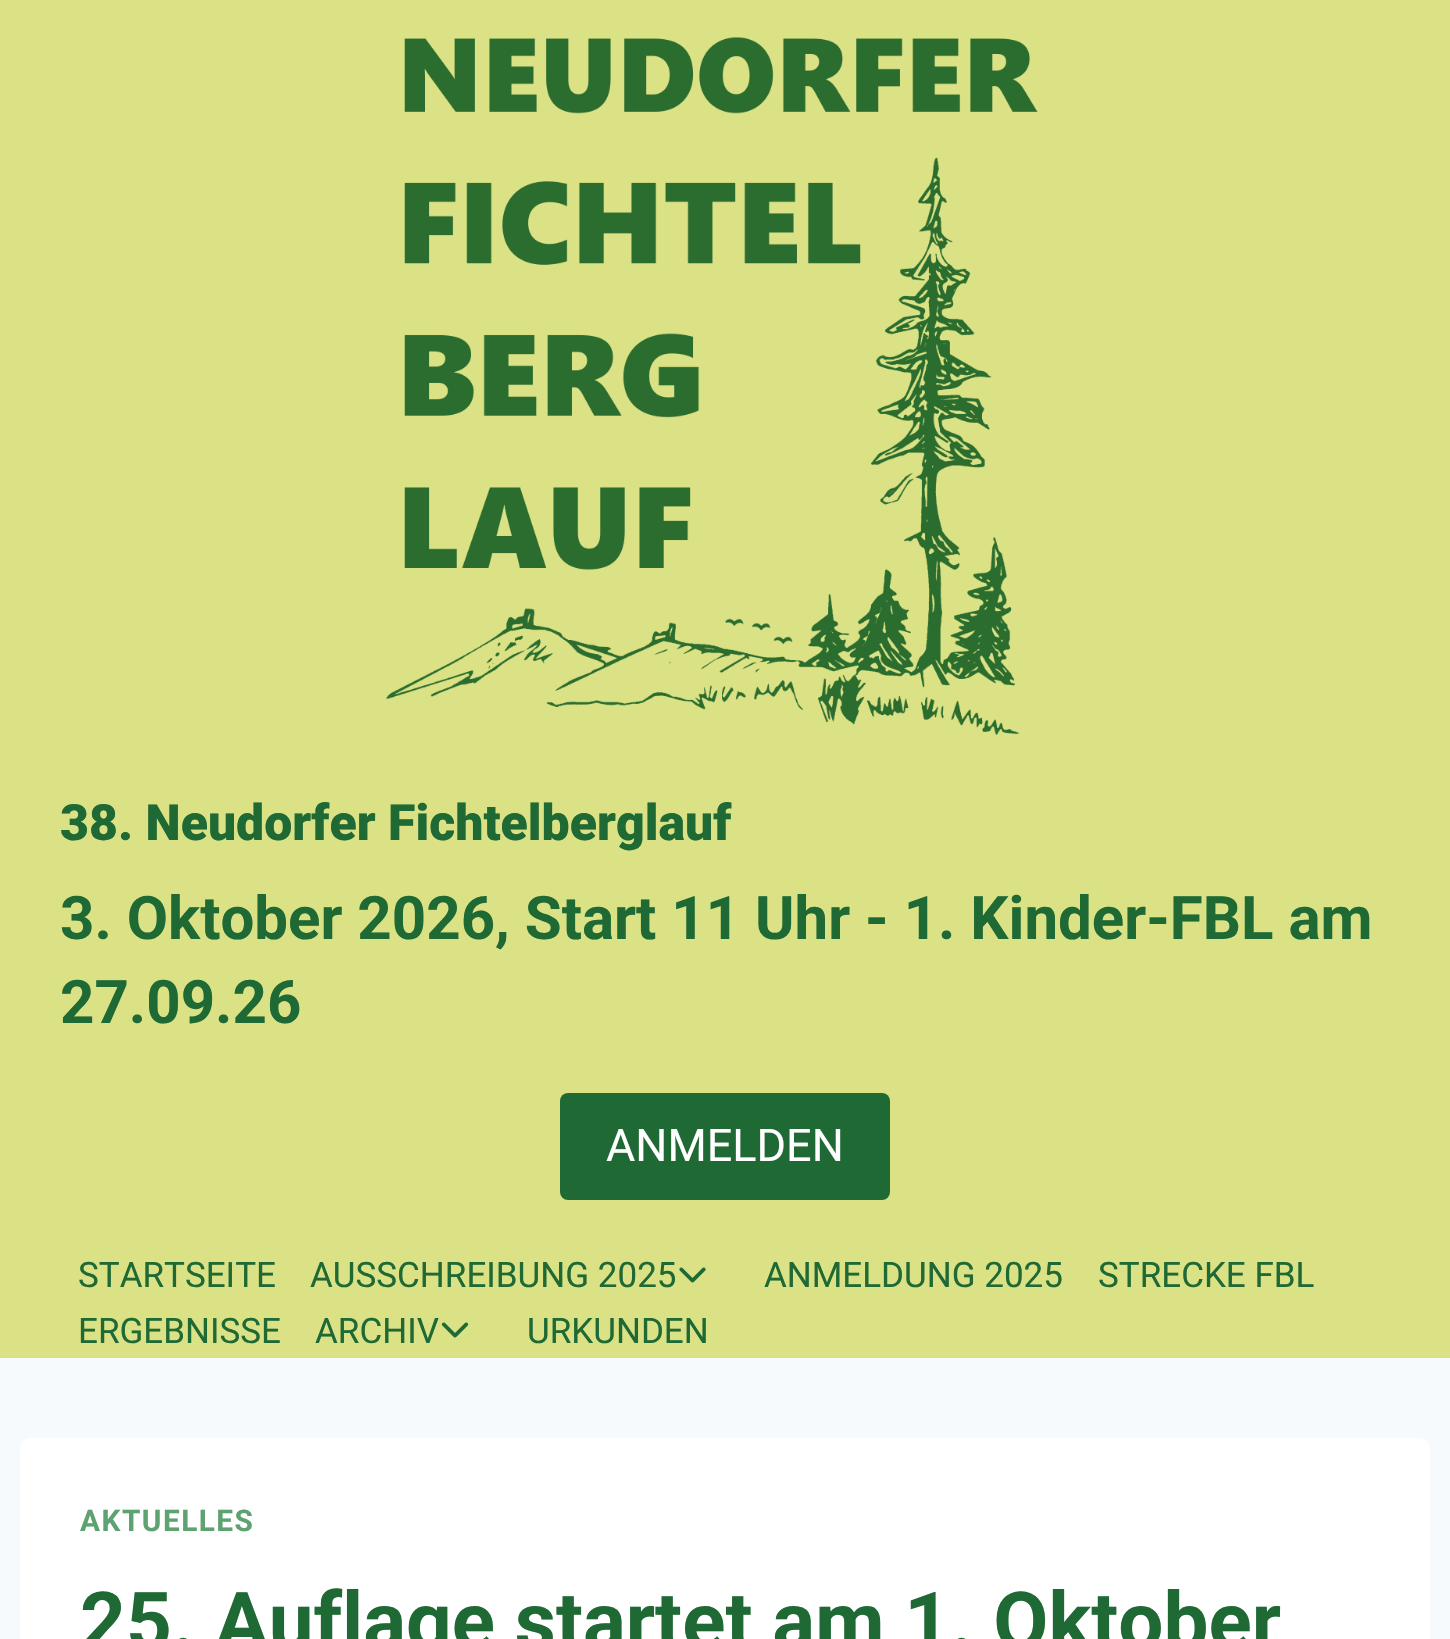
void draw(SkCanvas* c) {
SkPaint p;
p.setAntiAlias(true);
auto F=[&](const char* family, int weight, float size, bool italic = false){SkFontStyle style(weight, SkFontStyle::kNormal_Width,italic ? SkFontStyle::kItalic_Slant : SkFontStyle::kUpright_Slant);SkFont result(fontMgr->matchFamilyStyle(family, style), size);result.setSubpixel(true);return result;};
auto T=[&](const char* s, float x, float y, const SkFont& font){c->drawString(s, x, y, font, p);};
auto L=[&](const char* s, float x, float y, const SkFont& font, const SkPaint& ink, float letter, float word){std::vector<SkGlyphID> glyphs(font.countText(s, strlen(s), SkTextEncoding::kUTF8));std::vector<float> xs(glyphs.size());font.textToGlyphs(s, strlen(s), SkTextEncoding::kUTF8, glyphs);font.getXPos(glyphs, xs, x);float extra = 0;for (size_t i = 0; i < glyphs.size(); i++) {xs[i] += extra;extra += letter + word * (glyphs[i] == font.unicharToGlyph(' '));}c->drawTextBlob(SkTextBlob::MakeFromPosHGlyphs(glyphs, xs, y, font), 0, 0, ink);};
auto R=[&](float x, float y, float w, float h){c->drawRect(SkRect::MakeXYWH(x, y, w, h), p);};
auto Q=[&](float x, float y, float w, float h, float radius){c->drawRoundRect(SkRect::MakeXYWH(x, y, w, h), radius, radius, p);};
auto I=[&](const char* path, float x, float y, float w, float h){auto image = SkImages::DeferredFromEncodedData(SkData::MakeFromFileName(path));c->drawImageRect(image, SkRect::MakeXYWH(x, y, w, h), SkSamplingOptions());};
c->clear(0xfff7fafc);
p.setColor(0xffdbe285);
R(0,0,1450,1358);
I("1.png",386,37,652,698);
auto f1 = F("Roboto",900,50);
p.setColor(0xff1f6935);
T("38. Neudorfer Fichtelberglauf",60,840,f1);
auto f2 = F("Roboto",700,60);
T("3. Oktober 2026, Start 11 Uhr - 1. Kinder-FBL am",60,939,f2);
T("27.09.26",60,1023,f2);
Q(560,1093,330,107,8);
auto f3 = F("Roboto",400,45);
p.setColor(0xffffffff);
T("ANMELDEN",606,1161,f3);
auto f4 = F("Roboto",400,35);
p.setColor(0xff1f6935);
T("STARTSEITE",78,1287,f4);
T("AUSSCHREIBUNG 2025",310,1287,f4);
I("2.png",679,1267,27,16);
T("ANMELDUNG 2025",764,1287,f4);
T("STRECKE FBL",1098,1287,f4);
T("ERGEBNISSE",78,1343,f4);
T("ARCHIV",315,1343,f4);
I("3.png",441,1322,28,16);
T("URKUNDEN",527,1343,f4);
p.setColor(0xffffffff);
Q(20,1438,1410,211,10);
auto f5 = F("Roboto",700,29.75);
p.setColor(0xff5ea271);
L("AKTUELLES",80,1531,f5,p,1.5,0);
auto f6 = F("Roboto",700,80);
p.setColor(0xff1f6935);
T("25. Auflage startet am 1. Oktober",80,1649,f6);
}
